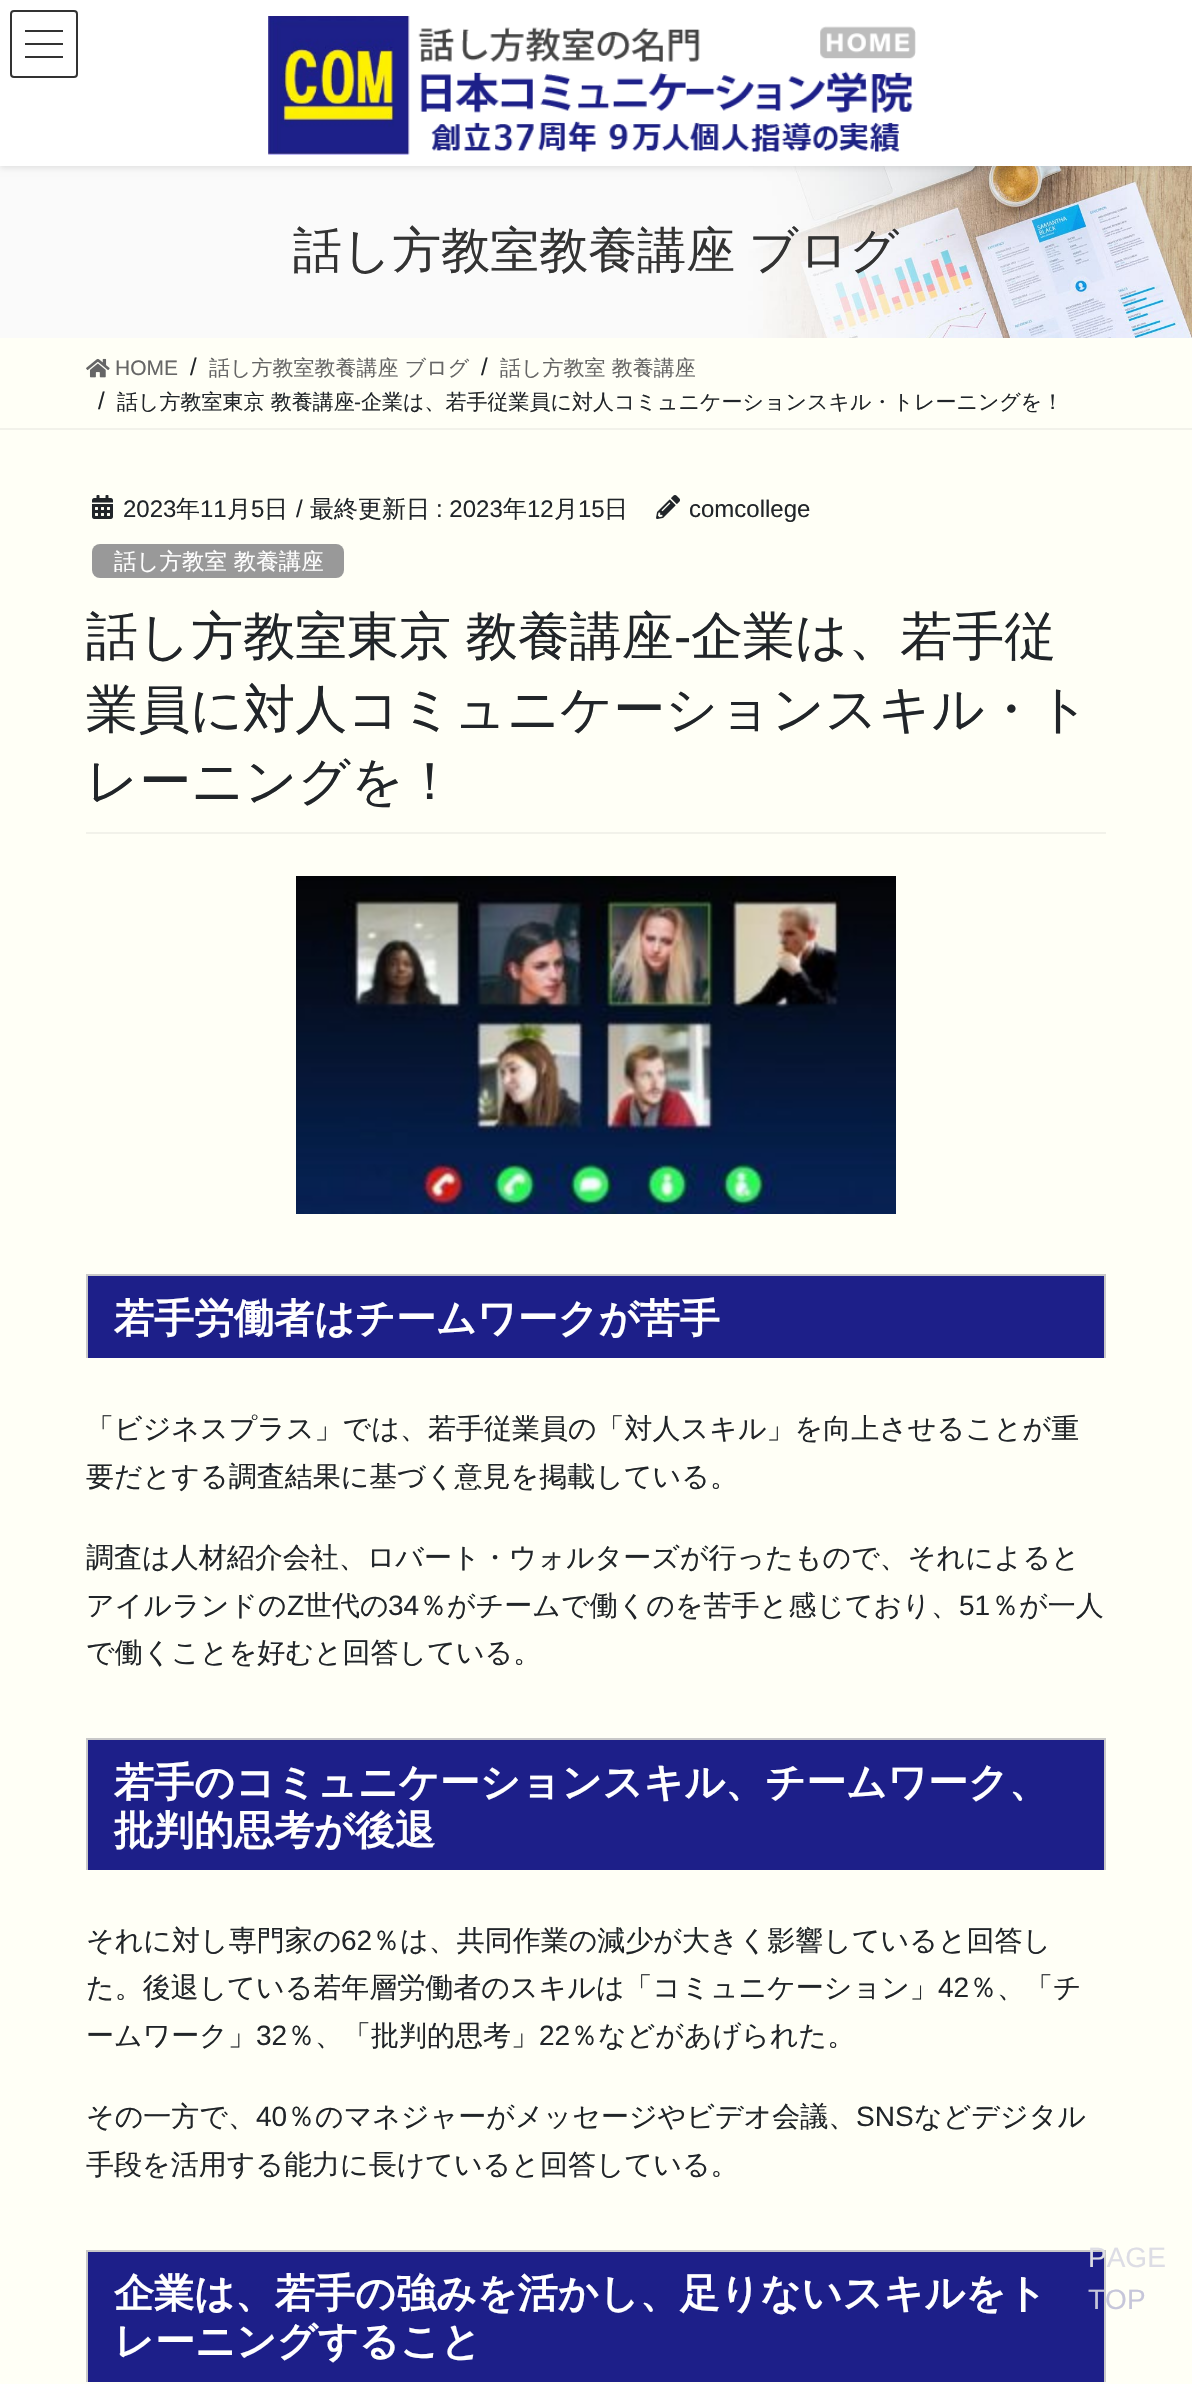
void draw(SkCanvas* c) {
SkPaint p;
p.setAntiAlias(true);
auto F=[&](const char* family, int weight, float size, bool italic = false){SkFontStyle style(weight, SkFontStyle::kNormal_Width,italic ? SkFontStyle::kItalic_Slant : SkFontStyle::kUpright_Slant);SkFont result(fontMgr->matchFamilyStyle(family, style), size);result.setSubpixel(true);return result;};
auto T=[&](const char* s, float x, float y, const SkFont& font){c->drawString(s, x, y, font, p);};
auto L=[&](const char* s, float x, float y, const SkFont& font, const SkPaint& ink, float letter, float word){std::vector<SkGlyphID> glyphs(font.countText(s, strlen(s), SkTextEncoding::kUTF8));std::vector<float> xs(glyphs.size());font.textToGlyphs(s, strlen(s), SkTextEncoding::kUTF8, glyphs);font.getXPos(glyphs, xs, x);float extra = 0;for (size_t i = 0; i < glyphs.size(); i++) {xs[i] += extra;extra += letter + word * (glyphs[i] == font.unicharToGlyph(' '));}c->drawTextBlob(SkTextBlob::MakeFromPosHGlyphs(glyphs, xs, y, font), 0, 0, ink);};
auto R=[&](float x, float y, float w, float h){c->drawRect(SkRect::MakeXYWH(x, y, w, h), p);};
auto Q=[&](float x, float y, float w, float h, float radius){c->drawRoundRect(SkRect::MakeXYWH(x, y, w, h), radius, radius, p);};
auto I=[&](const char* path, float x, float y, float w, float h){auto image = SkImages::DeferredFromEncodedData(SkData::MakeFromFileName(path));c->drawImageRect(image, SkRect::MakeXYWH(x, y, w, h), SkSamplingOptions());};
c->clear(0xfffffff6);
I("2.png",0,166,1192,172);
p.setColor(0x1a000000);
p.setMaskFilter(SkMaskFilter::MakeBlur(kNormal_SkBlurStyle, 3));
c->drawRect(SkRect::MakeXYWH(0,2,1192,166),p);
p.setMaskFilter(nullptr);
p.setColor(0xffffffff);
R(0,0,1192,166);
I("1.png",268,16,648,139);
p.setColor(0xff333333);
R(25,30,38,2);
R(25,43,38,2);
R(25,56,38,2);
p.setStroke(true);
p.setStrokeWidth(2);
c->drawRoundRect(SkRect::MakeXYWH(11,11,66,66),3,3,p);
auto f1 = F("WenQuanYi Zen Hei",500,49);
p.setStroke(false);
L("話し方教室教養講座 ブログ",293,267,f1,p,0,-1);
p.setColor(0xfff2f2ea);
R(0,428,1192,2);
I("3.png",86,358,24,20);
auto f2 = F("Liberation Sans",400,21);
p.setColor(0xff666666);
T("HOME",115,375,f2);
auto f3 = F("Liberation Sans",400,24);
p.setColor(0xff212529);
T("/",190,375,f3);
auto f4 = F("WenQuanYi Zen Hei",500,21);
p.setColor(0xff666666);
T("話し方教室教養講座 ブログ",209,375,f4);
p.setColor(0xff212529);
T("/",481,375,f3);
p.setColor(0xff666666);
T("話し方教室 教養講座",500,375,f4);
p.setColor(0xff212529);
T("/",98,409,f3);
T("話し方教室東京 教養講座",117,409,f4);
T("-",354,409,f2);
T("企業は、若手従業員に対人コミュニケーションスキル・トレーニングを！",361,409,f4);
p.setColor(0xfff2f2ea);
R(86,832,1020,2);
I("4.png",92,495,21,24);
p.setColor(0xff212529);
T("2023",123,517,f3);
auto f5 = F("WenQuanYi Zen Hei",500,24);
T("年",176,517,f5);
T("11",200,517,f3);
T("月",227,517,f5);
T("5",251,517,f3);
T("日",264,517,f5);
T("/",296,517,f3);
T("最終更新日",310,517,f5);
T(": 2023",436,517,f3);
T("年",503,517,f5);
T("12",527,517,f3);
T("月",554,517,f5);
T("15",578,517,f3);
T("日",604,517,f5);
I("5.png",656,495,24,24);
T("comcollege",689,517,f3);
p.setColor(0xff999999);
Q(92,544,252,34,8);
auto f6 = F("WenQuanYi Zen Hei",500,22.5);
p.setColor(0xffffffff);
T("話し方教室 教養講座",114,569,f6);
auto f7 = F("WenQuanYi Zen Hei",500,52);
p.setColor(0xff212529);
L("話し方教室東京 教養講座",86,654,f7,p,0,-1);
auto f8 = F("Liberation Sans",400,52);
T("-",674,654,f8);
T("企業は、若手従",691,654,f7);
T("業員に対人コミュニケーションスキル・ト",86,727,f7);
T("レーニングを！",86,799,f7);
I("6.png",296,876,600,338);
p.setColor(0xff1d1f89);
R(88,1276,1016,82);
p.setColor(0xffc8c8c8);
R(86,1274,1020,2);
R(1104,1274,2,84);
R(86,1274,2,84);
auto f9 = F("WenQuanYi Zen Hei",700,40);
p.setColor(0xffffffff);
T("若手労働者はチームワークが苦手",114,1332,f9);
auto f10 = F("WenQuanYi Zen Hei",500,28);
p.setColor(0xff212529);
T("「ビジネスプラス」では、若手従業員の「対人スキル」を向上させることが重",86,1438,f10);
T("要だとする調査結果に基づく意見を掲載している。",86,1486,f10);
T("調査は人材紹介会社、ロバート・ウォルターズが行ったもので、それによると",86,1567,f10);
T("アイルランドの",86,1615,f10);
auto f11 = F("Liberation Sans",400,28);
T("Z",287,1615,f11);
T("世代の",304,1615,f10);
T("34",388,1615,f11);
T("％がチームで働くのを苦手と感じており、",419,1615,f10);
T("51",959,1615,f11);
T("％が一人",991,1615,f10);
T("で働くことを好むと回答している。",86,1662,f10);
p.setColor(0xff1d1f89);
R(88,1740,1016,130);
p.setColor(0xffc8c8c8);
R(86,1738,1020,2);
R(1104,1738,2,132);
R(86,1738,2,132);
p.setColor(0xffffffff);
T("若手のコミュニケーションスキル、チームワーク、",114,1796,f9);
T("批判的思考が後退",114,1844,f9);
p.setColor(0xff212529);
T("それに対し専門家の",86,1950,f10);
T("62",341,1950,f11);
T("％は、共同作業の減少が大きく影響していると回答し",372,1950,f10);
T("た。後退している若年層労働者のスキルは「コミュニケーション」",86,1997,f10);
T("42",938,1997,f11);
T("％、「チ",969,1997,f10);
T("ームワーク」",86,2045,f10);
T("32",256,2045,f11);
T("％、「批判的思考」",287,2045,f10);
T("22",539,2045,f11);
T("％などがあげられた。",570,2045,f10);
T("その一方で、",86,2126,f10);
T("40",256,2126,f11);
T("％のマネジャーがメッセージやビデオ会議、",287,2126,f10);
T("SNS",856,2126,f11);
T("などデジタル",914,2126,f10);
T("手段を活用する能力に長けていると回答している。",86,2174,f10);
p.setColor(0xff1d1f89);
R(88,2252,1016,130);
p.setColor(0xffc8c8c8);
R(86,2250,1020,2);
R(1104,2250,2,132);
R(86,2250,2,132);
p.setColor(0xffffffff);
T("企業は、若手の強みを活かし、足りないスキルをト",114,2307,f9);
T("レーニングすること",114,2355,f9);
p.setColor(0xffdddde5);
T("PAGE",1088,2267,f11);
p.setColor(0xffc6c6da);
T("TOP",1088,2309,f11);
}
